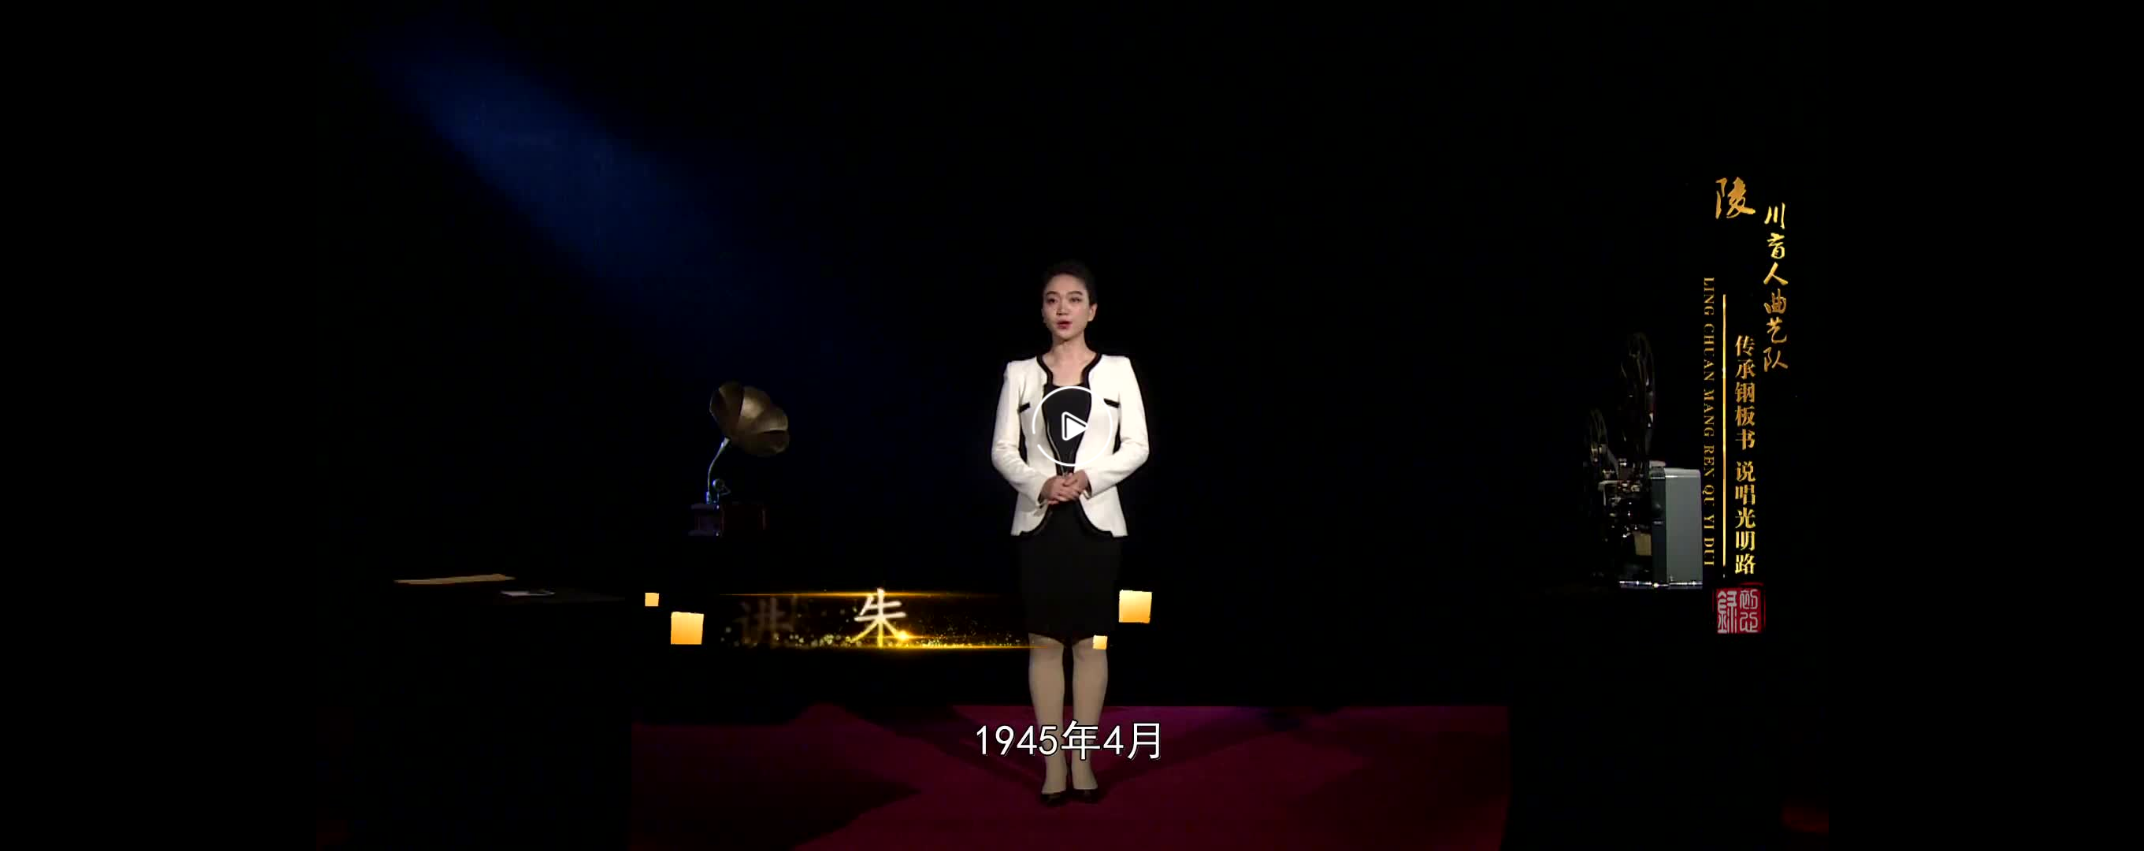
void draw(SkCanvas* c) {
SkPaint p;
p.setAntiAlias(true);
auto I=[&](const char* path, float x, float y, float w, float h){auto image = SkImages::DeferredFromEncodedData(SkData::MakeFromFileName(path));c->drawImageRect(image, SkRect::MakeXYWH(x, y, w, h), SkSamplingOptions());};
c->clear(0xff000000);
I("1.png",316,0,1513,851);
I("2.png",1031,385,83,83);
}
